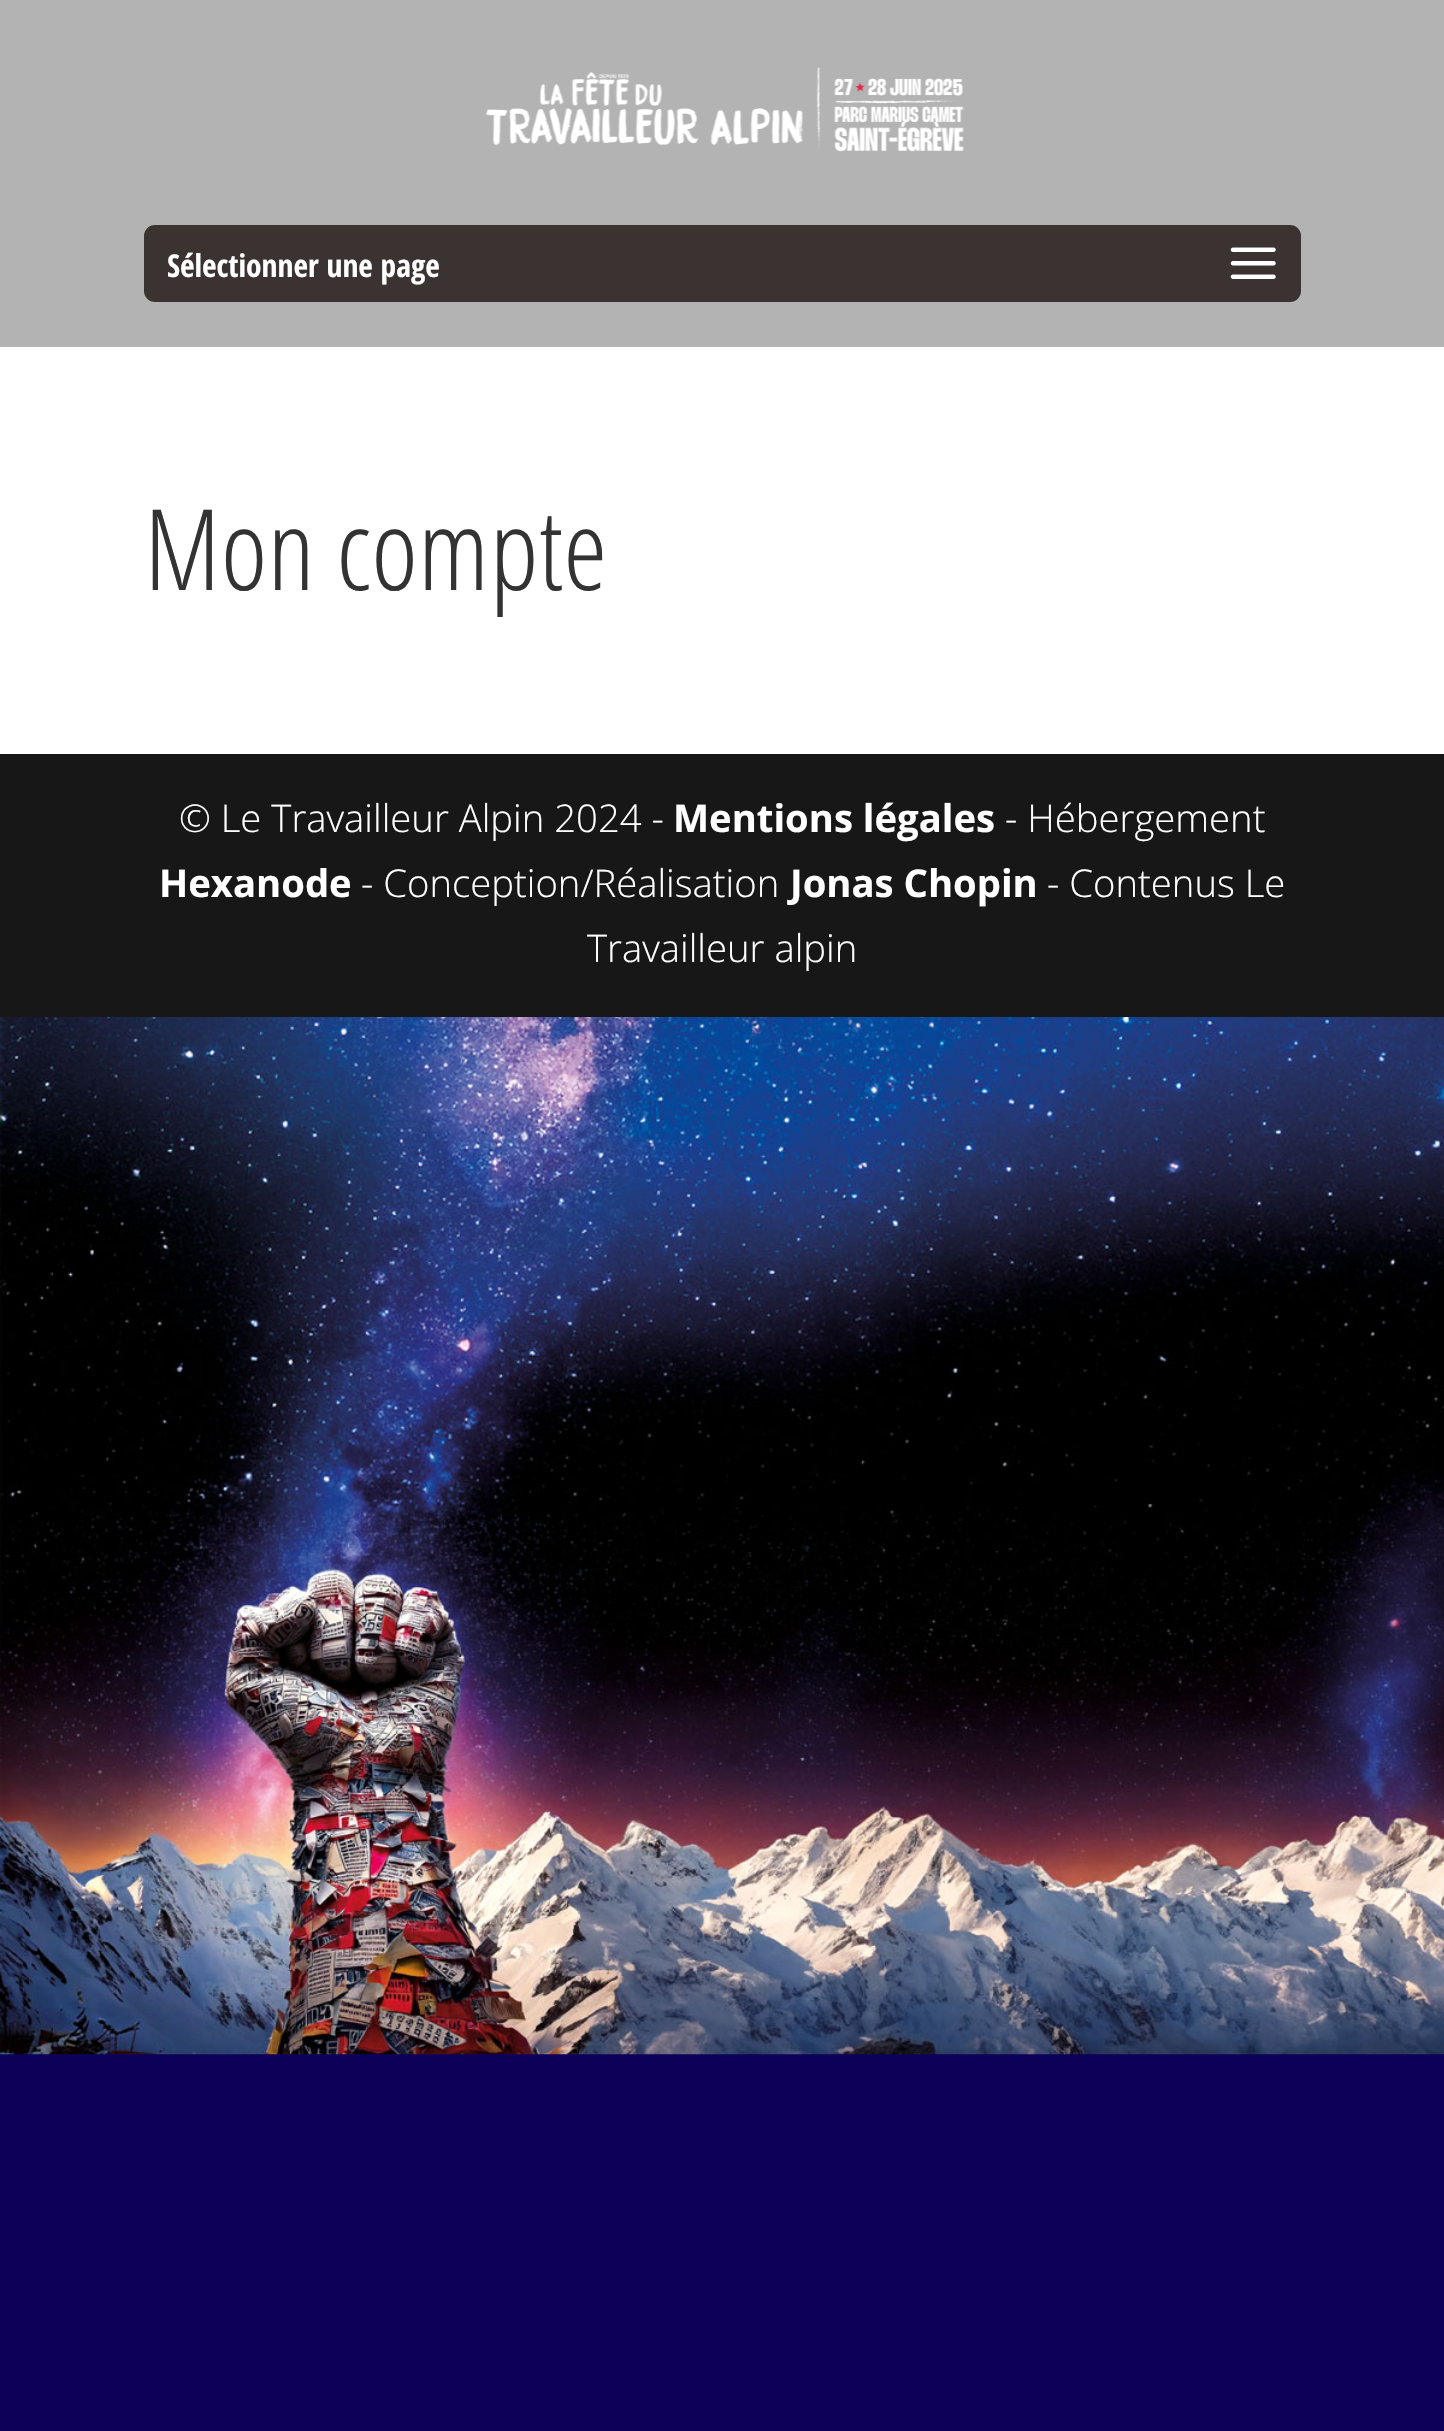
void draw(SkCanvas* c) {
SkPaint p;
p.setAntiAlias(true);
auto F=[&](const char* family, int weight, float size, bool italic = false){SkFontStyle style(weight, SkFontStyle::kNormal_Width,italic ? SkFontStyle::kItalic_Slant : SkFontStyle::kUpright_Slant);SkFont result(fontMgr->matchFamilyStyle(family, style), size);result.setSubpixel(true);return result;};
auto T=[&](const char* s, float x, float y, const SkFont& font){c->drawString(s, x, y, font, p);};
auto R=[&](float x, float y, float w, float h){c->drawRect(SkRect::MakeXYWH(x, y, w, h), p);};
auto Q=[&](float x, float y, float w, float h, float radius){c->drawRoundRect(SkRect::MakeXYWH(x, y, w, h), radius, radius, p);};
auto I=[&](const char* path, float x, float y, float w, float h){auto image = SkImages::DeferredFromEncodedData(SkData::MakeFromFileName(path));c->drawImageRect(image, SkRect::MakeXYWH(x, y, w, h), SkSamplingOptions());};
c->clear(0xff0d0059);
I("1.png",0,1017,1444,1038);
p.setColor(0xffb3b3b3);
R(0,0,1444,347);
I("2.png",485,67,479,85);
p.setColor(0xff3b3232);
Q(144,225,1157,77,11);
auto f1 = F("Open Sans Condensed",700,31.5);
p.setColor(0xffffffff);
T("Sélectionner une page",167,277,f1);
I("3.png",1230,247,46,32);
R(0,347,1444,407);
auto f2 = F("Open Sans Condensed",300,112.5);
p.setColor(0xff333333);
T("Mon compte",144,590,f2);
p.setColor(0xff171717);
R(0,754,1444,263);
auto f3 = F("Open Sans",300,38.25);
p.setColor(0xffffffff);
T("© Le Travailleur Alpin 2024 -",179,832,f3);
auto f4 = F("Open Sans",700,38.25);
T("Mentions légales",673,832,f4);
T("- Hébergement",1005,832,f3);
T("Hexanode",159,897,f4);
T("- Conception/Réalisation",361,897,f3);
T("Jonas Chopin",790,897,f4);
T("- Contenus Le",1047,897,f3);
T("Travailleur alpin",587,962,f3);
}
